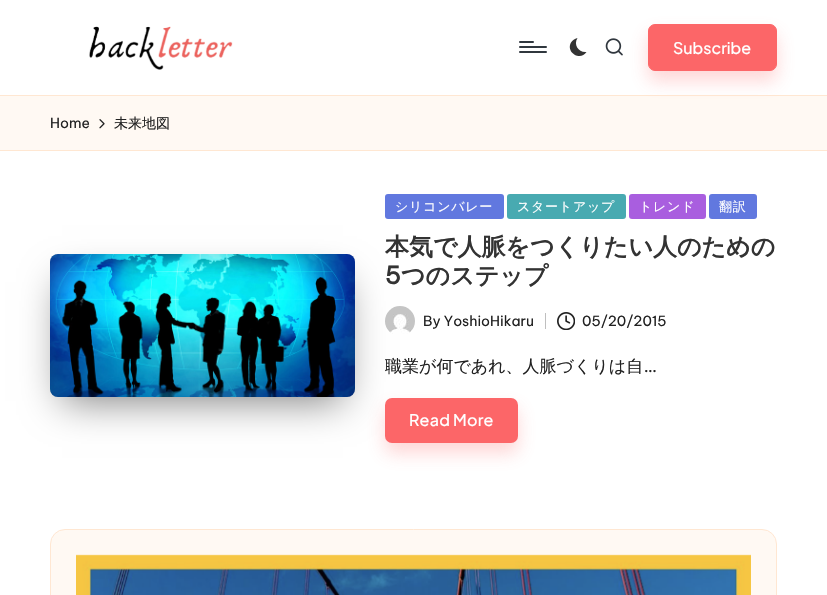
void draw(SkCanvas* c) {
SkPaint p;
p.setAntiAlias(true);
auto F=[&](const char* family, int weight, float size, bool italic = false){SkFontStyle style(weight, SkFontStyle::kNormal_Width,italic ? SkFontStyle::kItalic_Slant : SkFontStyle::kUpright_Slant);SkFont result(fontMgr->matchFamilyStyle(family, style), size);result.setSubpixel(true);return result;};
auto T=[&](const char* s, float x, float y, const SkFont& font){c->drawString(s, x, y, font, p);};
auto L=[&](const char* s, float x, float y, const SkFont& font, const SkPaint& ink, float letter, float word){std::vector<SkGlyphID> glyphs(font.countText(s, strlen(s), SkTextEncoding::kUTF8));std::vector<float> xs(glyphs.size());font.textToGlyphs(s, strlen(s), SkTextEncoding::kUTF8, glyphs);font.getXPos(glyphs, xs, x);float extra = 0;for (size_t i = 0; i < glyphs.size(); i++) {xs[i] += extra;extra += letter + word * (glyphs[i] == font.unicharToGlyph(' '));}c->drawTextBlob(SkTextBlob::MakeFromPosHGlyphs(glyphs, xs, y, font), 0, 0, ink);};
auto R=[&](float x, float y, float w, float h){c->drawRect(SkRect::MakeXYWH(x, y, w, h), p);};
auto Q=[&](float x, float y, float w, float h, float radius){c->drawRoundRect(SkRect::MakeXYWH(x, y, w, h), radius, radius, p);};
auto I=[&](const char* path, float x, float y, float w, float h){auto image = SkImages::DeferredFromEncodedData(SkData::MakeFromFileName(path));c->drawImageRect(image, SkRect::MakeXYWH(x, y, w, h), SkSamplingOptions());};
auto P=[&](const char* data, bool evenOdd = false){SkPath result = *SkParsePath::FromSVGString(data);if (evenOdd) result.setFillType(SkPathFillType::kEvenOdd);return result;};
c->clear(0xffffffff);
I("1.png",89,26,144,44);
p.setColor(0xff30373e);
Q(519,46,28,2,1);
Q(519,41,15,2,1);
Q(519,51,28,2,1);
p.setColor(0xff333333);
c->drawPath(P("M586.5 52c-7.5 1-13.5-7-9-14c-3 .5-5 2.5-6.5 4.5c-5.5 10 9.5 19 15.5 9.5z"),p);
I("2.png",605,38,18,18);
p.setColor(0xfffff9f3);
R(0,96,827,54);
p.setColor(0xffffe7d2);
R(0,95,827,1);
p.setColor(0x45fc6668);
p.setMaskFilter(SkMaskFilter::MakeBlur(kNormal_SkBlurStyle, 9));
c->drawRoundRect(SkRect::MakeXYWH(648,34,129,47),7,7,p);
p.setMaskFilter(nullptr);
p.setColor(0xfffc6668);
c->drawRoundRect(SkRect::MakeXYWH(648.5,24.5,128,46),6.5,6.5,p);
p.setStroke(true);
p.setStrokeWidth(1);
c->drawRoundRect(SkRect::MakeXYWH(648.5,24.5,128,46),6.5,6.5,p);
auto f1 = F("Plus Jakarta Sans",500,16);
p.setStroke(false);
p.setColor(0xffffffff);
T("Subscribe",673,54,f1);
p.setColor(0xffffe7d2);
R(0,150,827,1);
auto f2 = F("Be Vietnam Pro",400,14);
p.setColor(0xff212121);
T("Home",50,128,f2);
I("3.png",99,119,6,10);
auto f3 = F("WenQuanYi Zen Hei",500,14);
T("未来地図",114,128,f3);
I("5.png",385,306,30,28);
p.setColor(0x80000000);
p.setMaskFilter(SkMaskFilter::MakeBlur(kNormal_SkBlurStyle, 19));
c->drawRect(SkRect::MakeXYWH(62,282,281,119),p);
p.setMaskFilter(nullptr);
p.setColor(0x2e000000);
Q(50,254,305,143,8);
I("4.png",50,254,305,143);
p.setColor(0xff6178df);
Q(385,194,119,25,3);
auto f4 = F("WenQuanYi Zen Hei",500,13);
p.setColor(0xffffffff);
L("シリコンバレー",395,211,f4,p,.75,0);
p.setColor(0xff48aab1);
Q(507,194,119,25,3);
p.setColor(0xffffffff);
L("スタートアップ",517,211,f4,p,.75,0);
p.setColor(0xffa95edf);
Q(629,194,77,25,3);
p.setColor(0xffffffff);
L("トレンド",639,211,f4,p,.75,0);
p.setColor(0xff6178df);
Q(709,194,48,25,3);
p.setColor(0xffffffff);
L("翻訳",719,211,f4,p,.75,0);
auto f5 = F("WenQuanYi Zen Hei",700,24);
p.setColor(0xff333333);
T("本気で人脈をつくりたい人のための",385,255,f5);
auto f6 = F("Be Vietnam Pro",700,24);
T("5",385,284,f6);
T("つのステップ",401,284,f5);
p.setColor(0xff212121);
T("By YoshioHikaru",423,326,f2);
p.setColor(0xffbfbfbf);
R(545,313,1,16);
I("6.png",557,312,18,18);
p.setColor(0xff212121);
T("05/20/2015",582,326,f2);
auto f7 = F("WenQuanYi Zen Hei",500,17);
T("職業が何であれ、人脈づくりは自",385,372,f7);
auto f8 = F("Be Vietnam Pro",400,17);
T("…",644,372,f8);
p.setColor(0x45fc6668);
p.setMaskFilter(SkMaskFilter::MakeBlur(kNormal_SkBlurStyle, 9));
c->drawRoundRect(SkRect::MakeXYWH(385,408,133,45),7,7,p);
p.setMaskFilter(nullptr);
p.setColor(0xfffc6668);
Q(385,398,133,45,7);
p.setColor(0xffffffff);
L("Read More",409,426,f1,p,.25,0);
p.setColor(0xfffff9f3);
c->drawRoundRect(SkRect::MakeXYWH(50.5,529.5,726,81),14.5,14.5,p);
p.setStroke(true);
p.setColor(0xffffe7d2);
c->drawRoundRect(SkRect::MakeXYWH(50.5,529.5,726,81),14.5,14.5,p);
I("7.png",76,554,675,41);
}
